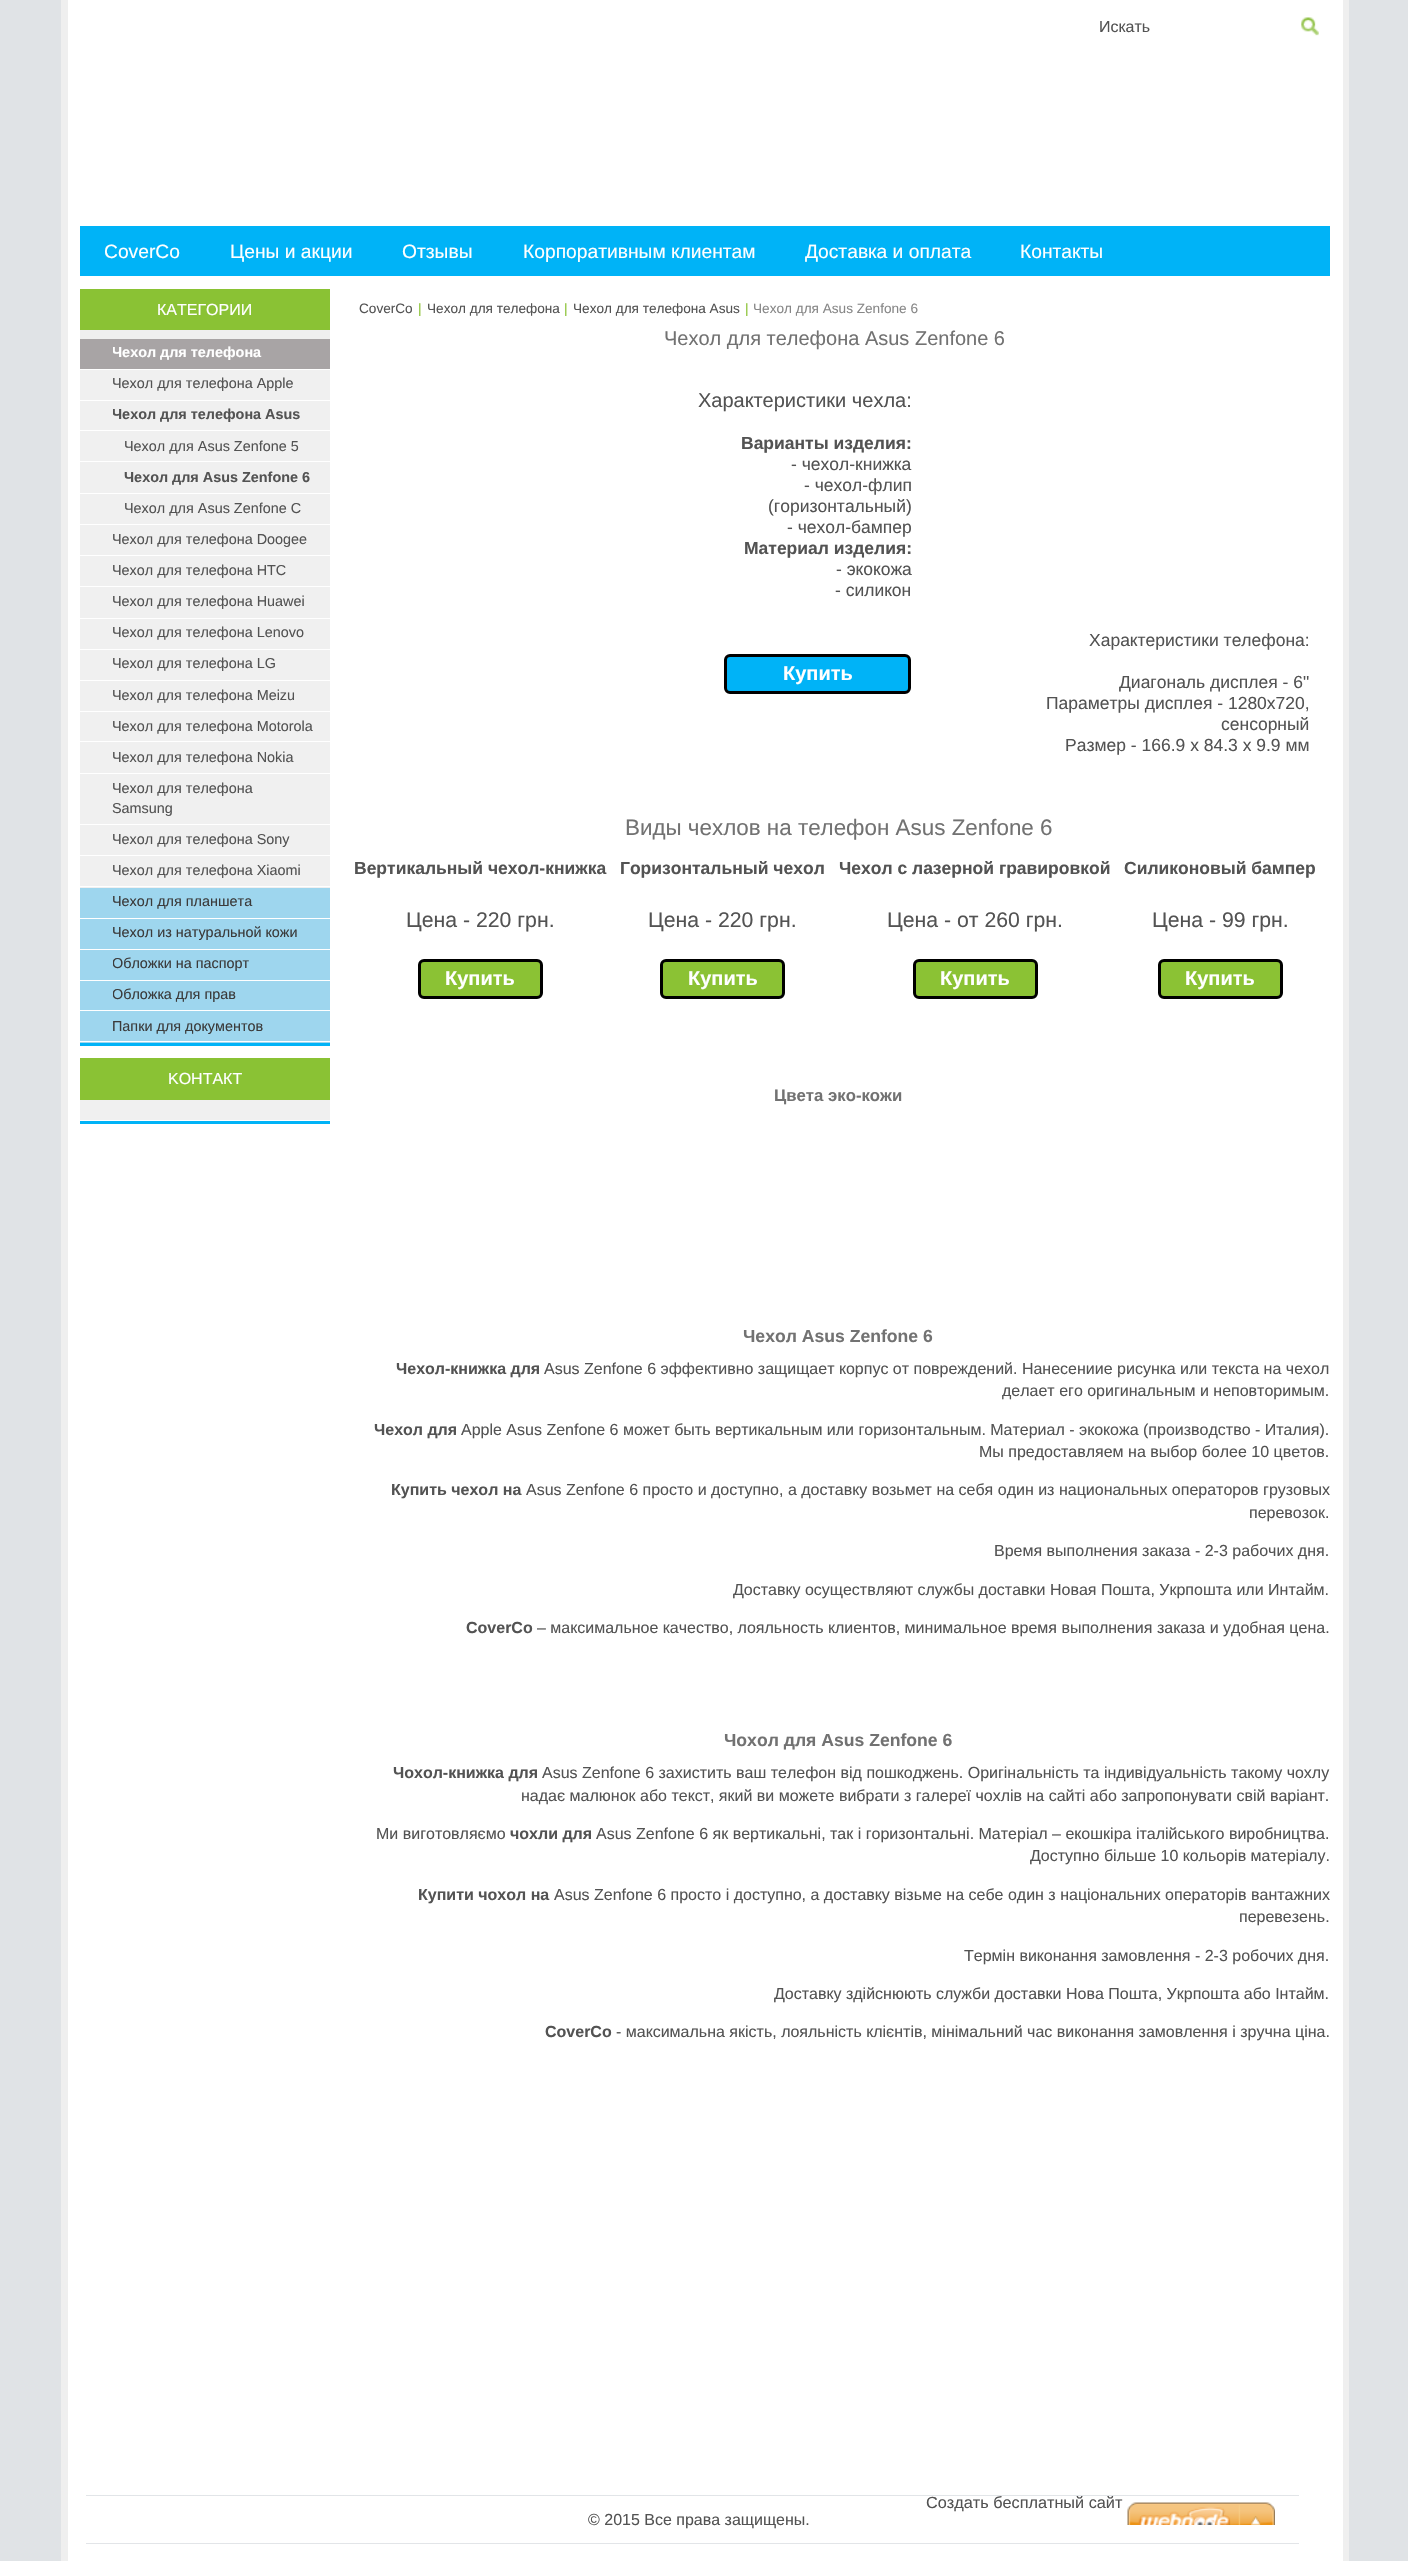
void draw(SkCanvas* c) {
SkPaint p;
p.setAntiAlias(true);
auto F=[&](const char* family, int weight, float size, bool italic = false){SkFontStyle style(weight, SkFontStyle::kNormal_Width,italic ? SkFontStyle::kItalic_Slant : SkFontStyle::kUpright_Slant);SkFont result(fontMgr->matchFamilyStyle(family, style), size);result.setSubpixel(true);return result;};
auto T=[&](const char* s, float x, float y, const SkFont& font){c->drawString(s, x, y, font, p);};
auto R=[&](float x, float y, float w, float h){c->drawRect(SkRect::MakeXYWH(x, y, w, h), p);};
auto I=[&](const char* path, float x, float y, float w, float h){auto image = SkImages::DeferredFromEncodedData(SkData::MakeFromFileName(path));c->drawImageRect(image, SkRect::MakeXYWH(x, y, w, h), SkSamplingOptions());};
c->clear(0xffe0e3e6);
p.setColor(0xffffffff);
R(68,0,1275,2561);
p.setColor(0xffefefef);
R(1343,0,6,2561);
R(61,0,7,2561);
auto f1 = F("Liberation Sans",400,16);
p.setColor(0xff535353);
T("Искать",1099,32,f1);
I("1.png",1301,17,18,19);
p.setColor(0xff00b3f7);
R(80,226,1250,50);
auto f2 = F("Liberation Sans",400,19.25);
p.setColor(0xffffffff);
T("CoverCo",104,258,f2);
T("Цены и акции",230,258,f2);
T("Отзывы",402,258,f2);
T("Корпоративным клиентам",523,258,f2);
T("Доставка и оплата",805,258,f2);
T("Контакты",1020,258,f2);
p.setColor(0xff00b3f7);
R(80,1043,250,3);
p.setColor(0xffefefef);
R(80,330,250,9);
p.setColor(0xff8ac234);
R(80,289,250,41);
p.setColor(0xffffffff);
T("КАТЕГОРИИ",157,315,f1);
p.setColor(0xffa8a4a5);
R(80,339,250,30);
c->save();
c->clipRect(SkRect::MakeXYWH(113,339,205,30));
auto f3 = F("Liberation Sans",700,14.4);
p.setColor(0xffffffff);
T("Чехол для телефона",112,357,f3);
c->restore();
p.setColor(0xfff0f0f0);
R(80,370,250,518);
p.setColor(0xffffffff);
R(80,400,250,1);
auto f4 = F("Liberation Sans",400,14.4);
p.setColor(0xff535353);
T("Чехол для телефона Apple",112,388,f4);
p.setColor(0xffffffff);
R(80,430,250,1);
c->save();
c->clipRect(SkRect::MakeXYWH(113,401,205,29));
p.setColor(0xff535353);
T("Чехол для телефона Asus",112,419,f3);
c->restore();
p.setColor(0xffffffff);
R(80,461,250,1);
p.setColor(0xff535353);
T("Чехол для Asus Zenfone 5",124,451,f4);
p.setColor(0xffffffff);
R(80,493,250,1);
p.setColor(0xff535353);
T("Чехол для Asus Zenfone 6",124,482,f3);
p.setColor(0xffffffff);
R(80,524,250,1);
p.setColor(0xff535353);
T("Чехол для Asus Zenfone С",124,513,f4);
p.setColor(0xffffffff);
R(80,555,250,1);
p.setColor(0xff535353);
T("Чехол для телефона Doogee",112,544,f4);
p.setColor(0xffffffff);
R(80,586,250,1);
p.setColor(0xff535353);
T("Чехол для телефона HTC",112,575,f4);
p.setColor(0xffffffff);
R(80,618,250,1);
p.setColor(0xff535353);
T("Чехол для телефона Huawei",112,606,f4);
p.setColor(0xffffffff);
R(80,649,250,1);
p.setColor(0xff535353);
T("Чехол для телефона Lenovo",112,637,f4);
p.setColor(0xffffffff);
R(80,680,250,1);
p.setColor(0xff535353);
T("Чехол для телефона LG",112,668,f4);
p.setColor(0xffffffff);
R(80,711,250,1);
p.setColor(0xff535353);
T("Чехол для телефона Meizu",112,700,f4);
p.setColor(0xffffffff);
R(80,741,250,1);
p.setColor(0xff535353);
T("Чехол для телефона Motorola",112,731,f4);
p.setColor(0xffffffff);
R(80,773,250,1);
p.setColor(0xff535353);
T("Чехол для телефона Nokia",112,762,f4);
p.setColor(0xffffffff);
R(80,824,250,1);
p.setColor(0xff535353);
T("Чехол для телефона",112,793,f4);
T("Samsung",112,813,f4);
p.setColor(0xffffffff);
R(80,855,250,1);
p.setColor(0xff535353);
T("Чехол для телефона Sony",112,844,f4);
p.setColor(0xffffffff);
R(80,886,250,1);
p.setColor(0xff535353);
T("Чехол для телефона Xiaomi",112,875,f4);
p.setColor(0xff9ed6ee);
R(80,888,250,30);
p.setColor(0xff3b3b3b);
T("Чехол для планшета",112,906,f4);
p.setColor(0xff9ed6ee);
R(80,919,250,30);
p.setColor(0xff3b3b3b);
T("Чехол из натуральной кожи",112,937,f4);
p.setColor(0xff9ed6ee);
R(80,950,250,30);
c->save();
c->clipRect(SkRect::MakeXYWH(113,950,205,30));
p.setColor(0xff3b3b3b);
T("Обложки на паспорт",112,968,f4);
c->restore();
p.setColor(0xff9ed6ee);
R(80,981,250,29);
c->save();
c->clipRect(SkRect::MakeXYWH(113,981,205,29));
p.setColor(0xff3b3b3b);
T("Обложка для прав",112,999,f4);
c->restore();
p.setColor(0xff9ed6ee);
R(80,1011,250,32);
p.setColor(0xffffffff);
R(80,1041,250,1);
p.setColor(0xff3b3b3b);
T("Папки для документов",112,1031,f4);
p.setColor(0xff00b3f7);
R(80,1121,250,3);
p.setColor(0xfff0f0f0);
R(80,1100,250,20);
p.setColor(0xff8ac234);
R(80,1058,250,42);
p.setColor(0xffffffff);
T("KOНТАКТ",168,1084,f1);
auto f5 = F("Liberation Sans",400,13.6);
p.setColor(0xff535353);
T("CoverCo",359,313,f5);
p.setColor(0xff8ac234);
T("|",418,313,f5);
p.setColor(0xff535353);
T("Чехол для телефона",427,313,f5);
p.setColor(0xff8ac234);
T("|",564,313,f5);
p.setColor(0xff535353);
T("Чехол для телефона Asus",573,313,f5);
p.setColor(0xff8ac234);
T("|",745,313,f5);
p.setColor(0xff878787);
T("Чехол для Asus Zenfone 6",753,313,f5);
auto f6 = F("Liberation Sans",400,20);
p.setColor(0xff727272);
T("Чехол для телефона Asus Zenfone 6",664,345,f6);
p.setColor(0xff535353);
T("Характеристики чехла:",698,407,f6);
auto f7 = F("Liberation Sans",700,17.5);
T("Варианты изделия:",741,449,f7);
auto f8 = F("Liberation Sans",400,17.5);
T("- чехол-книжка",791,470,f8);
T("- чехол-флип",804,491,f8);
T("(горизонтальный)",768,512,f8);
T("- чехол-бампер",787,533,f8);
T("Материал изделия:",744,554,f7);
T("- экокожа",836,575,f8);
T("- силикон",835,596,f8);
p.setColor(0xff00b3f7);
c->drawRoundRect(SkRect::MakeXYWH(725.5,655.5,184,37),4.5,4.5,p);
p.setStroke(true);
p.setStrokeWidth(3);
p.setColor(0xff000000);
c->drawRoundRect(SkRect::MakeXYWH(725.5,655.5,184,37),4.5,4.5,p);
auto f9 = F("Liberation Sans",700,20);
p.setStroke(false);
p.setColor(0xffffffff);
T("Купить",783,680,f9);
p.setColor(0xff535353);
T("Характеристики телефона:",1089,646,f8);
T("Диагональ дисплея - 6\"",1119,688,f8);
T("Параметры дисплея - 1280x720,",1046,709,f8);
T("сенсорный",1221,730,f8);
T("Размер - 166.9 x 84.3 x 9.9 мм",1065,751,f8);
auto f10 = F("Liberation Sans",400,22.4);
p.setColor(0xff727272);
T("Виды чехлов на телефон Asus Zenfone 6",625,835,f10);
p.setColor(0xff535353);
T("Вертикальный чехол-книжка",354,874,f7);
T("Горизонтальный чехол",620,874,f7);
T("Чехол с лазерной гравировкой",839,874,f7);
T("Силиконовый бампер",1124,874,f7);
auto f11 = F("Liberation Sans",400,21.25);
T("Цена - 220 грн.",406,927,f11);
T("Цена - 220 грн.",648,927,f11);
T("Цена - от 260 грн.",887,927,f11);
T("Цена - 99 грн.",1152,927,f11);
p.setColor(0xff8bc234);
c->drawRoundRect(SkRect::MakeXYWH(419.5,960.5,122,37),4.5,4.5,p);
p.setStroke(true);
p.setColor(0xff000000);
c->drawRoundRect(SkRect::MakeXYWH(419.5,960.5,122,37),4.5,4.5,p);
p.setStroke(false);
p.setColor(0xffffffff);
T("Купить",445,985,f9);
p.setColor(0xff8bc234);
c->drawRoundRect(SkRect::MakeXYWH(661.5,960.5,122,37),4.5,4.5,p);
p.setStroke(true);
p.setColor(0xff000000);
c->drawRoundRect(SkRect::MakeXYWH(661.5,960.5,122,37),4.5,4.5,p);
p.setStroke(false);
p.setColor(0xffffffff);
T("Купить",688,985,f9);
p.setColor(0xff8bc234);
c->drawRoundRect(SkRect::MakeXYWH(914.5,960.5,122,37),4.5,4.5,p);
p.setStroke(true);
p.setColor(0xff000000);
c->drawRoundRect(SkRect::MakeXYWH(914.5,960.5,122,37),4.5,4.5,p);
p.setStroke(false);
p.setColor(0xffffffff);
T("Купить",940,985,f9);
p.setColor(0xff8bc234);
c->drawRoundRect(SkRect::MakeXYWH(1159.5,960.5,122,37),4.5,4.5,p);
p.setStroke(true);
p.setColor(0xff000000);
c->drawRoundRect(SkRect::MakeXYWH(1159.5,960.5,122,37),4.5,4.5,p);
p.setStroke(false);
p.setColor(0xffffffff);
T("Купить",1185,985,f9);
auto f12 = F("Liberation Sans",700,16.75);
p.setColor(0xff727272);
T("Цвета эко-кожи",774,1101,f12);
auto f13 = F("Liberation Sans",700,17.6);
T("Чехол Asus Zenfone 6",743,1342,f13);
auto f14 = F("Liberation Sans",700,16);
p.setColor(0xff535353);
T("Чехол-книжка для",396,1374,f14);
T("Asus Zenfone 6 эффективно защищает корпус от повреждений. Нанесениие рисунка или текста на чехол",544,1374,f1);
T("делает его оригинальным и неповторимым.",1002,1396,f1);
T("Чехол для",374,1435,f14);
T("Apple Asus Zenfone 6 может быть вертикальным или горизонтальным. Материал - экокожа (производство - Италия).",461,1435,f1);
T("Мы предоставляем на выбор более 10 цветов.",979,1457,f1);
T("Купить чехол на",391,1495,f14);
T("Asus Zenfone 6 просто и доступно, а доставку возьмет на себя один из национальных операторов грузовых",526,1495,f1);
T("перевозок.",1249,1518,f1);
T("Время выполнения заказа - 2-3 рабочих дня.",994,1556,f1);
T("Доставку осуществляют службы доставки Новая Пошта, Укрпошта или Интайм.",733,1595,f1);
T("CoverCo",466,1633,f14);
T("– максимальное качество, лояльность клиентов, минимальное время выполнения заказа и удобная цена.",537,1633,f1);
p.setColor(0xff727272);
T("Чохол для Asus Zenfone 6",724,1746,f13);
p.setColor(0xff535353);
T("Чохол-книжка для",393,1778,f14);
T("Asus Zenfone 6 захистить ваш телефон від пошкоджень. Оригінальність та індивідуальність такому чохлу",542,1778,f1);
T("надає малюнок або текст, який ви можете вибрати з галереї чохлів на сайті або запропонувати свій варіант.",521,1801,f1);
T("Ми виготовляємо",376,1839,f1);
T("чохли для",510,1839,f14);
T("Asus Zenfone 6 як вертикальні, так і горизонтальні. Матеріал – екошкіра італійського виробництва.",596,1839,f1);
T("Доступно більше 10 кольорів матеріалу.",1030,1861,f1);
T("Купити чохол на",418,1900,f14);
T("Asus Zenfone 6 просто і доступно, а доставку візьме на себе один з національних операторів вантажних",554,1900,f1);
T("перевезень.",1239,1922,f1);
T("Термін виконання замовлення - 2-3 робочих дня.",964,1961,f1);
T("Доставку здійснюють служби доставки Нова Пошта, Укрпошта або Інтайм.",774,1999,f1);
T("CoverCo",545,2037,f14);
T("- максимальна якість, лояльність клієнтів, мінімальний час виконання замовлення і зручна ціна.",616,2037,f1);
p.setColor(0xffe2e5e8);
R(86,2495,1213,1);
R(86,2543,1213,1);
p.setColor(0xff535353);
T("© 2015 Все права защищены.",588,2525,f1);
auto f15 = F("Liberation Sans",400,16.25);
T("Создать бесплатный сайт",926,2508,f15);
I("2.png",1127,2502,148,23);
}
